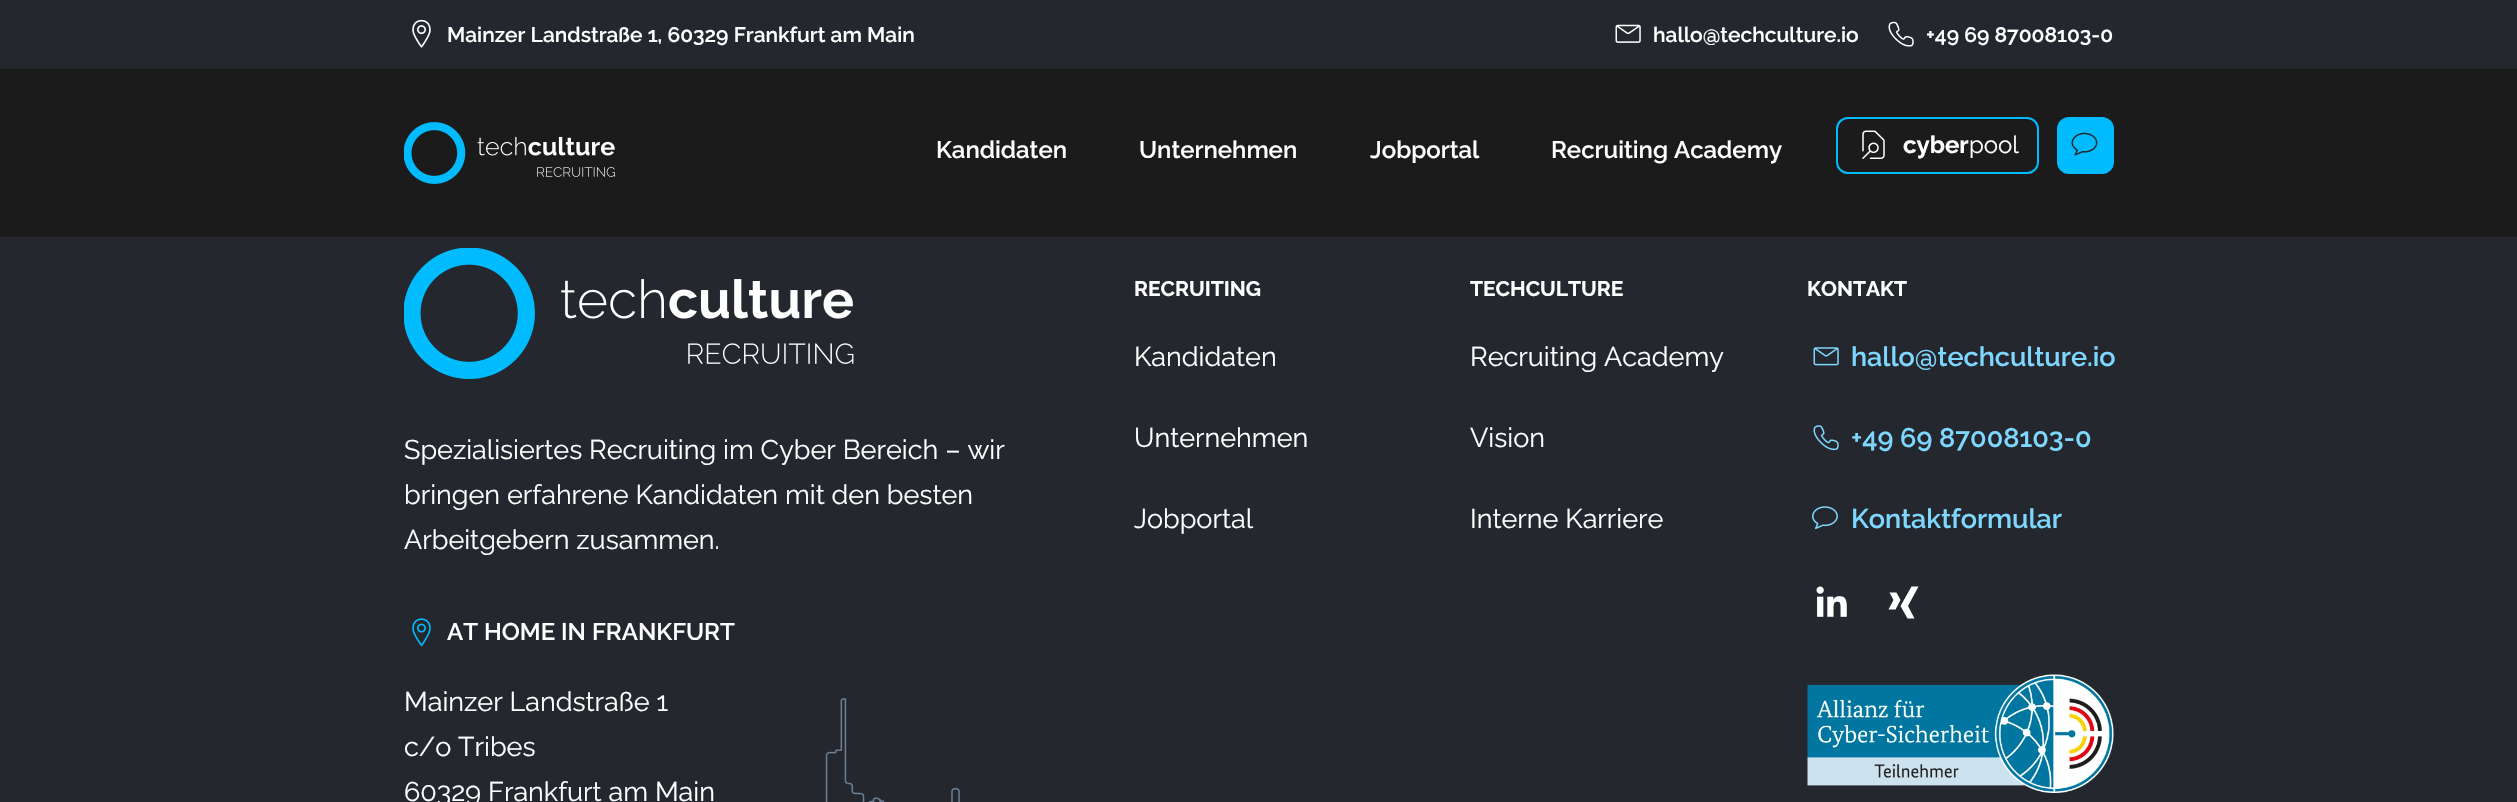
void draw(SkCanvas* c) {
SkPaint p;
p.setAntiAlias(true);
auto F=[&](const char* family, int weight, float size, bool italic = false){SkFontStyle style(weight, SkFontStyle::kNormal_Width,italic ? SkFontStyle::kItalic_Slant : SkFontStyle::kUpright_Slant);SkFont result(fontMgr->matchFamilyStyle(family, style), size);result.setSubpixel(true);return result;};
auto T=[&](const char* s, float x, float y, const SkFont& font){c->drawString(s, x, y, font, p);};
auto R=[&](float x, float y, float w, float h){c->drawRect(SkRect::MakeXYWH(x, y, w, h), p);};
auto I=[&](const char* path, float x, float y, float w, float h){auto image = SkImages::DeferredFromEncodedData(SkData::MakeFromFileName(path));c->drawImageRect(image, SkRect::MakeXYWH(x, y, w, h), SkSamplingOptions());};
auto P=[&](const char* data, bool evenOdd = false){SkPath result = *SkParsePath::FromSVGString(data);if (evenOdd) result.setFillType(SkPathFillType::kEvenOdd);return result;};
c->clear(0xff24282e);
I("1.png",412,19,19,29);
auto f1 = F("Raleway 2",100,21);
p.setColor(0xffffffff);
T("Mainzer Landstraße 1, 60329 Frankfurt am Main",447,42,f1);
I("2.png",1615,24,26,19);
T("hallo@techculture.io",1653,42,f1);
I("3.png",1888,21,26,26);
T("+49 69 87008103-0",1926,42,f1);
p.setColor(0xff1b1b1b);
R(0,69,2517,168);
I("4.png",404,122,211,62);
auto f2 = F("Raleway 2",100,24);
p.setColor(0xffffffff);
T("Kandidaten",936,158,f2);
T("Unternehmen",1139,158,f2);
T("Jobportal",1370,158,f2);
T("Recruiting Academy",1551,158,f2);
p.setStroke(true);
p.setStrokeWidth(2);
p.setColor(0xff00bcff);
c->drawRoundRect(SkRect::MakeXYWH(1837,118,201,55),11,11,p);
I("5.png",1862,130,23,29);
auto f3 = F("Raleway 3",100,24);
p.setStroke(false);
p.setColor(0xffffffff);
T("cyber",1903,153,f3);
auto f4 = F("Raleway",100,24);
T("pool",1969,153,f4);
p.setColor(0xff00bcff);
c->drawRoundRect(SkRect::MakeXYWH(2058,118,55,55),11,11,p);
p.setStroke(true);
c->drawRoundRect(SkRect::MakeXYWH(2058,118,55,55),11,11,p);
I("6.png",2071,132,27,24);
auto f5 = F("Raleway 3",100,21);
p.setStroke(false);
p.setColor(0xffffffff);
T("RECRUITING",1134,296,f5);
auto f6 = F("Raleway",100,27);
T("Kandidaten",1134,366,f6);
T("Unternehmen",1134,447,f6);
T("Jobportal",1134,528,f6);
T("TECHCULTURE",1470,296,f5);
T("Recruiting Academy",1470,366,f6);
T("Vision",1470,447,f6);
T("Interne Karriere",1470,528,f6);
T("KONTAKT",1807,296,f5);
I("7.png",1813,347,26,19);
auto f7 = F("Raleway 2",100,27);
p.setColor(0xff7ed7ff);
T("hallo@techculture.io",1851,366,f7);
I("8.png",1813,425,26,26);
T("+49 69 87008103-0",1851,447,f7);
I("9.png",1812,506,26,24);
T("Kontaktformular",1851,528,f7);
I("10.png",1816,586,31,31);
p.setColor(0xffffffff);
c->drawPath(P("M1918.5 586.5h-7l-11 19.5l7 12.5h7l-6.5-12.5zm-22 6h-7l4 7.5l-5 9.5h7l5-9.5z"),p);
I("11.png",1807,674,307,119);
I("12.png",404,248,450,131);
T("Spezialisiertes Recruiting im Cyber Bereich – wir",404,459,f6);
T("bringen erfahrene Kandidaten mit den besten",404,504,f6);
T("Arbeitgebern zusammen.",404,549,f6);
I("13.png",412,618,19,29);
T("AT HOME IN FRANKFURT",447,640,f2);
T("Mainzer Landstraße 1",404,711,f6);
T("c/o Tribes",404,756,f6);
T("60329 Frankfurt am Main",404,801,f6);
I("14.png",825,698,135,104);
}
